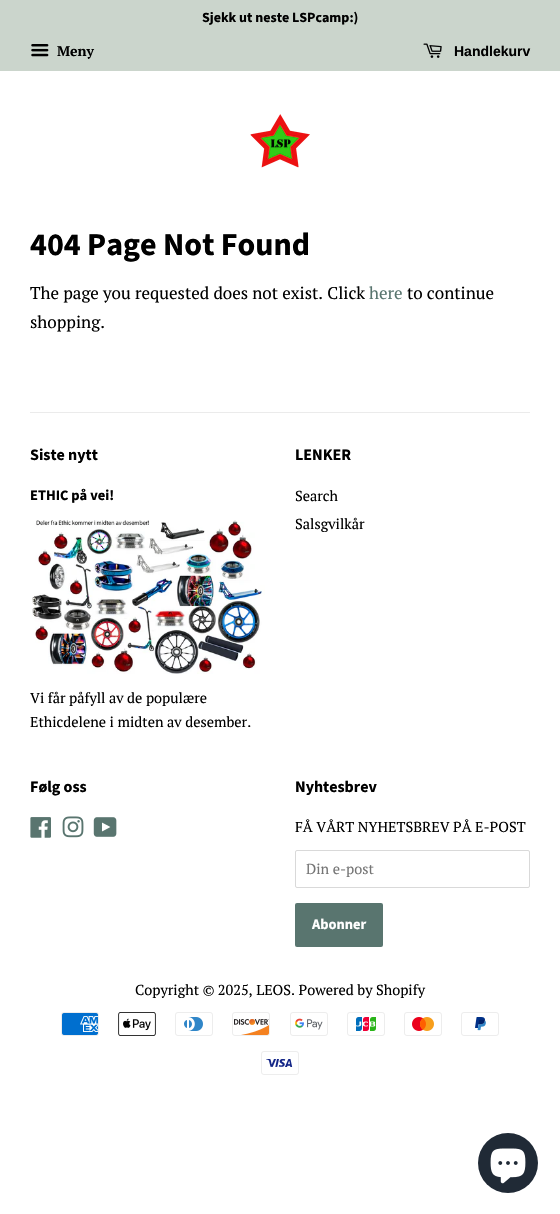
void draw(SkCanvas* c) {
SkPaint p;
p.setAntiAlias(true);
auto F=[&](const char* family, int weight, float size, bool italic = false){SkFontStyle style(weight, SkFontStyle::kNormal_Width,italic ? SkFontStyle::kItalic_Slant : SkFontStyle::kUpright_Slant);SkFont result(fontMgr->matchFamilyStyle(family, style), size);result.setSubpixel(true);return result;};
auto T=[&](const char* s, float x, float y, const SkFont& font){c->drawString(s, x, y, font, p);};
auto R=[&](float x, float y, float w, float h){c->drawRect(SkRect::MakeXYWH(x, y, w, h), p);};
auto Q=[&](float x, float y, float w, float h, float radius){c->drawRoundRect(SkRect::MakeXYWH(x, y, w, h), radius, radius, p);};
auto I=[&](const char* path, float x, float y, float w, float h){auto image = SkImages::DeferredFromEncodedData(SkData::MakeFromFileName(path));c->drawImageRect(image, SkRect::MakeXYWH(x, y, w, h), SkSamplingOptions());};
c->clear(0xffffffff);
p.setColor(0xffcbd5cc);
R(0,0,560,71);
auto f1 = F("Source Sans Pro",700,14);
p.setColor(0xff000000);
T("Sjekk ut neste LSPcamp:)",202,22,f1);
I("1.png",31,44,18,13);
auto f2 = F("PT Serif",700,14);
T("Meny",57,56,f2);
I("2.png",423,43,19,15);
auto f3 = F("Liberation Sans",700,14);
T("Handlekurv",454,56,f3);
I("3.png",250,114,60,54);
auto f4 = F("Source Sans Pro",700,32);
T("404 Page Not Found",30,255,f4);
auto f5 = F("PT Serif",400,17);
T("The page you requested does not exist. Click",30,299,f5);
p.setColor(0xff59756f);
T("here",369,299,f5);
p.setColor(0xff000000);
T("to continue",407,299,f5);
T("shopping.",30,328,f5);
p.setColor(0xffebebeb);
R(30,412,500,1);
auto f6 = F("Source Sans Pro",700,16);
p.setColor(0xff000000);
T("Siste nytt",30,460,f6);
auto f7 = F("Source Sans Pro",700,14.45);
T("ETHIC på vei!",30,500,f7);
I("4.png",32,520,233,154);
auto f8 = F("PT Serif",400,14.45);
T("Vi får påfyll av de populære",30,703,f8);
T("Ethicdelene i midten av desember.",30,727,f8);
T("LENKER",295,460,f6);
T("Search",295,501,f8);
T("Salsgvilkår",295,529,f8);
T("Følg oss",30,792,f6);
I("5.png",30,817,21,21);
I("6.png",62,816,22,22);
I("7.png",93,817,24,20);
T("Nyhtesbrev",295,792,f6);
T("FÅ VÅRT NYHETSBREV PÅ E-POST",295,832,f8);
p.setStroke(true);
p.setStrokeWidth(1);
p.setColor(0xffd9d9d9);
c->drawRoundRect(SkRect::MakeXYWH(295.5,850.5,234,37),1.5,1.5,p);
p.setStroke(false);
p.setColor(0xff757575);
T("Din e-post",306,874,f8);
p.setColor(0xff59756f);
Q(295,903,88,44,2);
p.setColor(0xffffffff);
T("Abonner",312,929,f7);
p.setColor(0xff000000);
T("Copyright © 2025, LEOS. Powered by Shopify",135,995,f8);
I("8.png",61,1012,38,24);
I("9.png",118,1012,38,24);
I("10.png",175,1012,38,24);
I("11.png",232,1012,38,24);
I("12.png",290,1012,38,24);
I("13.png",347,1012,38,24);
I("14.png",404,1012,38,24);
I("15.png",461,1012,38,24);
I("16.png",261,1051,38,24);
p.setColor(0xff202a36);
c->drawCircle(508,1163,30,p);
I("17.png",490,1148,36,36);
}
